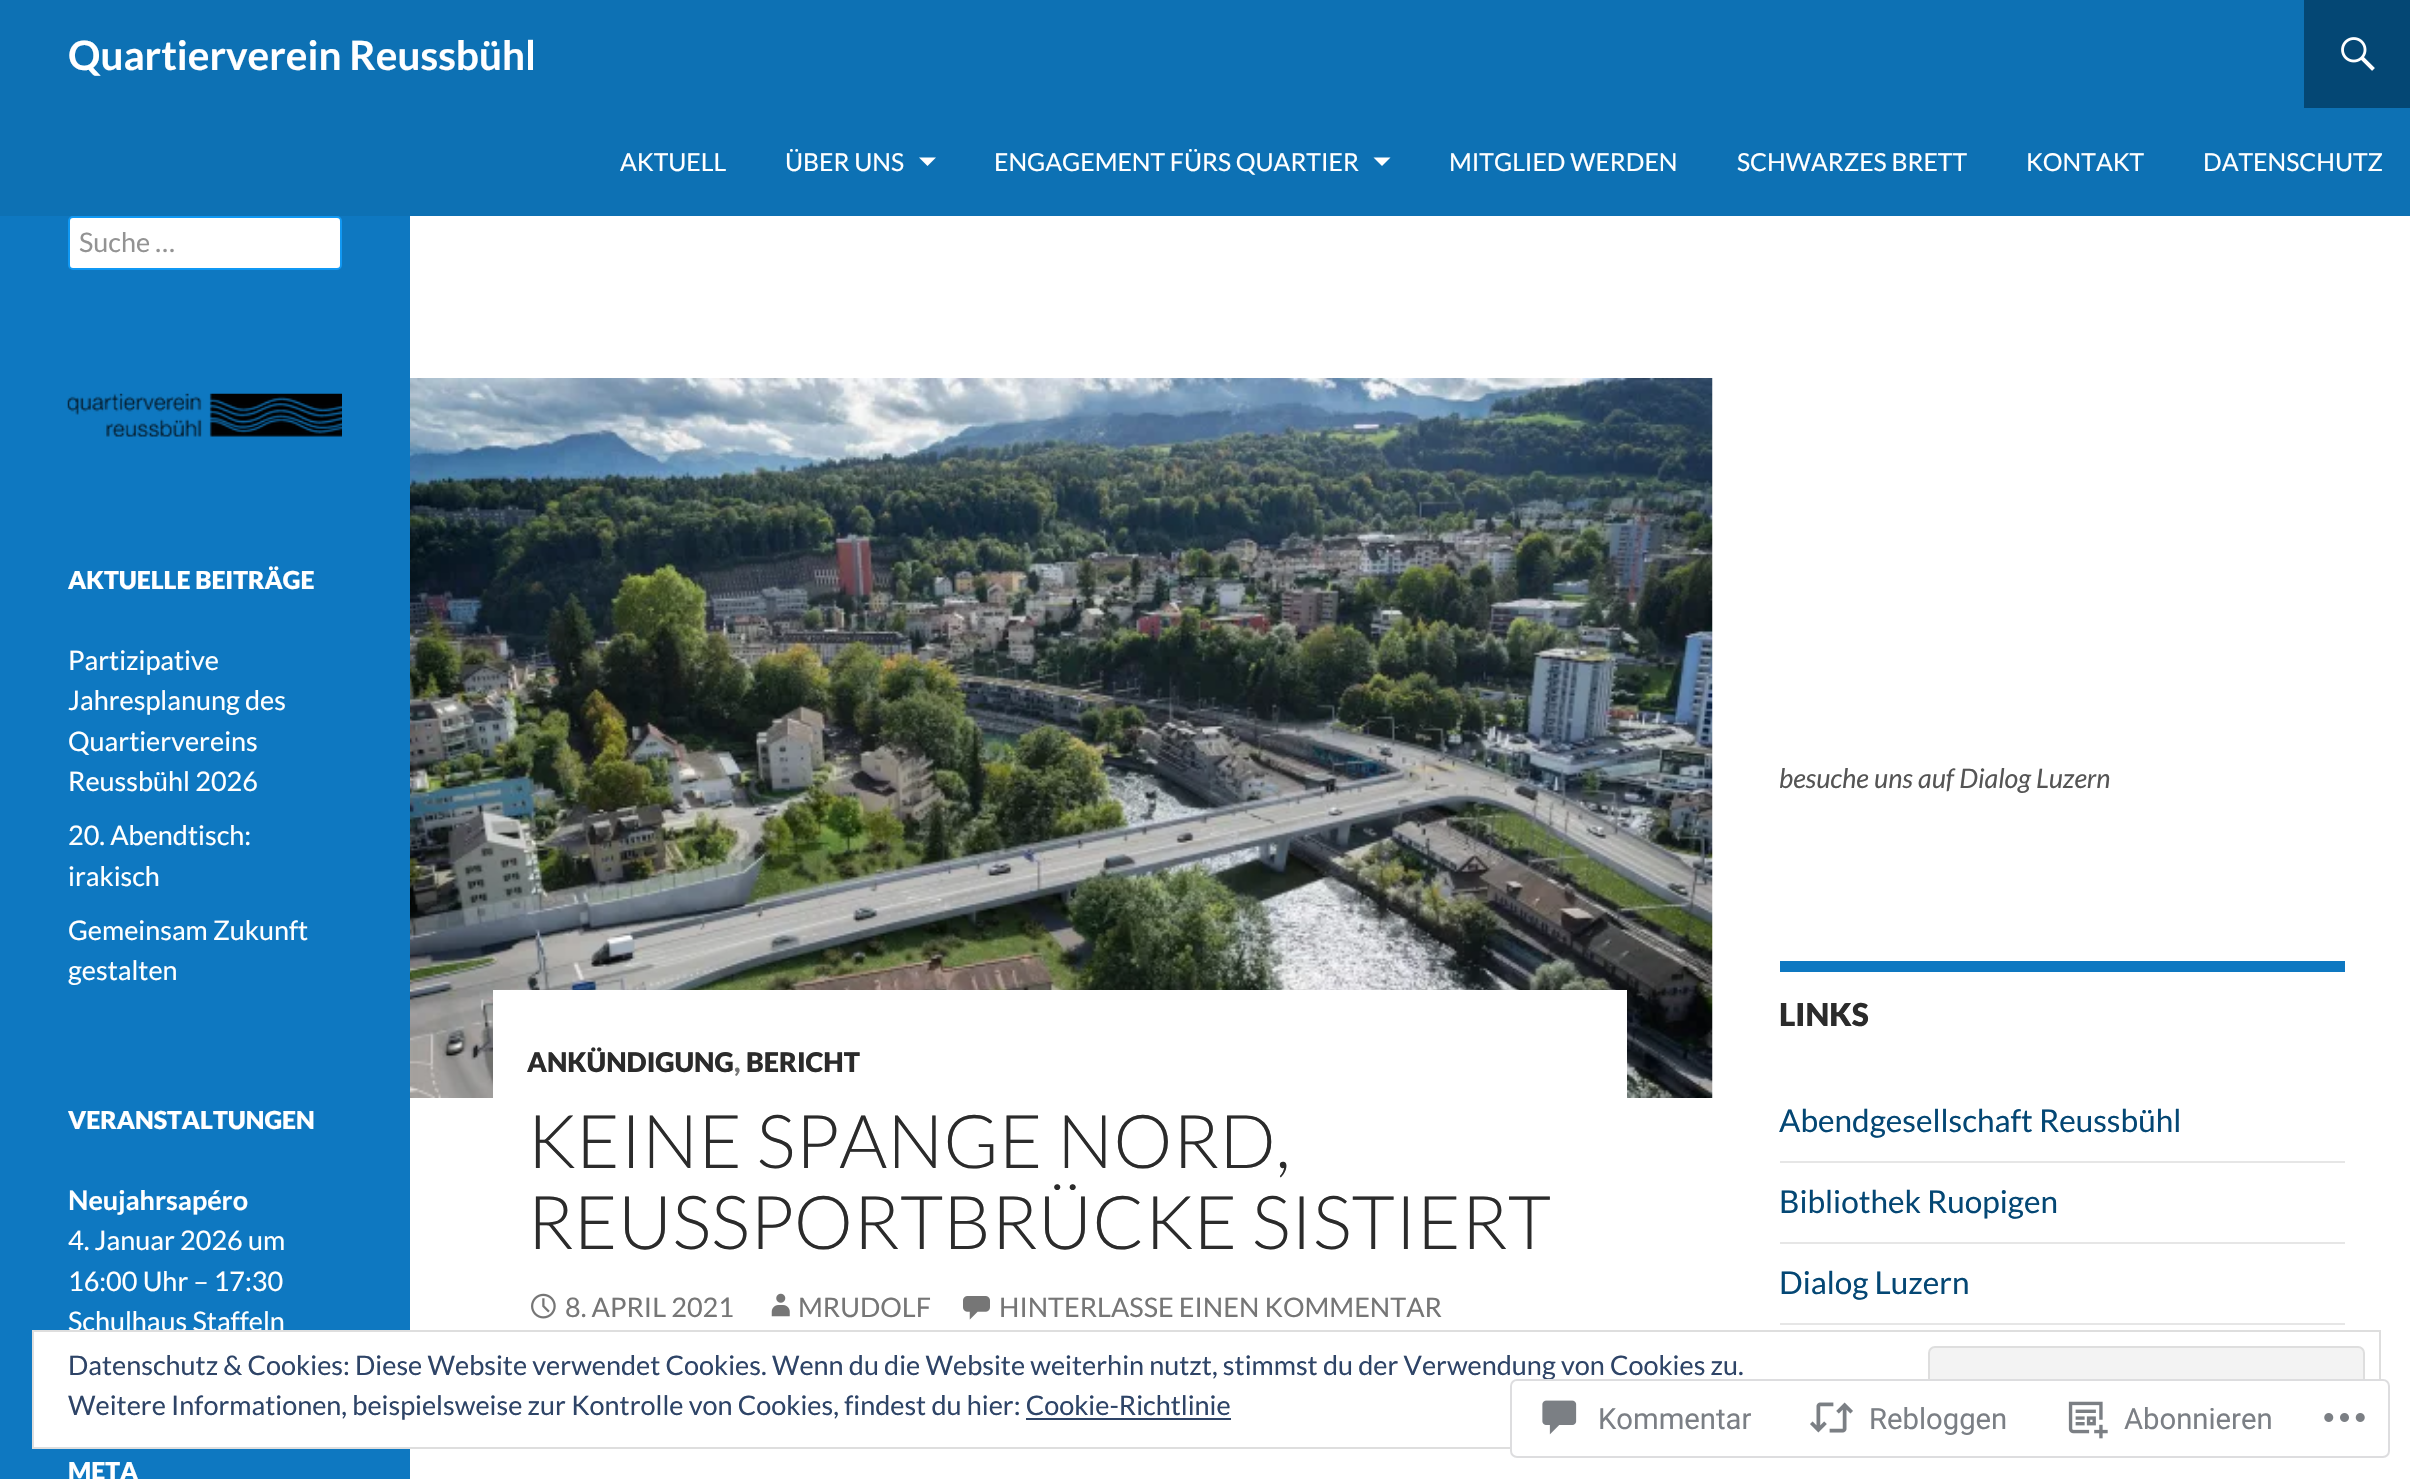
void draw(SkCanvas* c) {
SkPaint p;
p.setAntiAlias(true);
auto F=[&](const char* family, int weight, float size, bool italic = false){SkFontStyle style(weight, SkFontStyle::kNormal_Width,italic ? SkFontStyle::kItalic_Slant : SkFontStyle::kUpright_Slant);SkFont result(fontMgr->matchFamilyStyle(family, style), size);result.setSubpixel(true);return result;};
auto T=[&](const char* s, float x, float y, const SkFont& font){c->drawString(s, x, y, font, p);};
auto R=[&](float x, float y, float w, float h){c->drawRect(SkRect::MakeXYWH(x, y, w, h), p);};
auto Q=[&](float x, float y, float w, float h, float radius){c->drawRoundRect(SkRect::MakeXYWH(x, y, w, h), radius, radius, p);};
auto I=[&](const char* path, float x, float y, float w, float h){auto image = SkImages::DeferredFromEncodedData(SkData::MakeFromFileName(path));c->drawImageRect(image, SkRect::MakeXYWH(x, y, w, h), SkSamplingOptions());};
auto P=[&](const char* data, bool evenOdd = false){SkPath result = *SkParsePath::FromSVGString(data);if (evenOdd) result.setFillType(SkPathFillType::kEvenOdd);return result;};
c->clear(0xffffffff);
p.setColor(0xff0d71b4);
R(0,0,2410,216);
auto f1 = F("Lato",700,40.5);
p.setColor(0xffffffff);
T("Quartierverein Reussbühl",68,70,f1);
p.setColor(0xff044774);
R(2304,0,106,108);
I("1.png",2341,37,34,34);
auto f2 = F("Lato",400,24.75);
p.setColor(0xffffffff);
T("AKTUELL",620,171,f2);
T("ÜBER UNS",785,171,f2);
c->drawPath(P("M919 157.5h17l-8.5 8.5z"),p);
T("ENGAGEMENT FÜRS QUARTIER",994,171,f2);
c->drawPath(P("M1373.5 157.5h17l-8.5 8.5z"),p);
T("MITGLIED WERDEN",1449,171,f2);
T("SCHWARZES BRETT",1737,171,f2);
T("KONTAKT",2026,171,f2);
T("DATENSCHUTZ",2203,171,f2);
p.setColor(0xff0e78c1);
R(0,216,410,1263);
p.setColor(0xffffffff);
c->drawRoundRect(SkRect::MakeXYWH(69,217,272,52),4,4,p);
p.setStroke(true);
p.setStrokeWidth(2);
p.setColor(0xff1098f3);
c->drawRoundRect(SkRect::MakeXYWH(69,217,272,52),4,4,p);
auto f3 = F("Lato",400,27);
p.setStroke(false);
p.setColor(0xff939393);
T("Suche …",79,252,f3);
I("2.png",67,393,275,44);
auto f4 = F("Lato",900,24.75);
p.setColor(0xffffffff);
T("AKTUELLE BEITRÄGE",68,589,f4);
T("Partizipative",68,670,f3);
T("Jahresplanung des",68,710,f3);
T("Quartiervereins",68,751,f3);
T("Reussbühl 2026",68,791,f3);
T("20. Abendtisch:",68,845,f3);
T("irakisch",68,886,f3);
T("Gemeinsam Zukunft",68,940,f3);
T("gestalten",68,980,f3);
T("VERANSTALTUNGEN",68,1129,f4);
auto f5 = F("Lato",700,27);
T("Neujahrsapéro",68,1210,f5);
T("4. Januar 2026 um",68,1250,f3);
T("16:00 Uhr – 17:30",68,1291,f3);
T("Schulhaus Staffeln",68,1331,f3);
T("META",68,1480,f4);
I("3.png",410,378,1303,720);
R(493,990,1134,108);
auto f6 = F("Lato",900,27);
p.setColor(0xff2b2b2b);
T("ANKÜNDIGUNG",527,1072,f6);
p.setColor(0xff767676);
T(",",734,1072,f6);
p.setColor(0xff2b2b2b);
T("BERICHT",746,1072,f6);
auto f7 = F("Lato",300,74.25);
T("KEINE SPANGE NORD,",527,1168,f7);
T("REUSSPORTBRÜCKE SISTIERT",527,1249,f7);
I("4.png",531,1293,25,26);
p.setColor(0xff767676);
T("8. APRIL 2021",565,1317,f3);
I("5.png",771,1293,19,24);
T("MRUDOLF",798,1317,f3);
I("6.png",963,1296,27,24);
T("HINTERLASSE EINEN KOMMENTAR",999,1317,f3);
auto f8 = F("Lato",400,27,true);
p.setColor(0xff555555);
T("besuche uns auf Dialog Luzern",1779,788,f8);
p.setColor(0xff0e78c1);
R(1780,961,565,11);
auto f9 = F("Lato",900,31.5);
p.setColor(0xff2b2b2b);
T("LINKS",1779,1026,f9);
auto f10 = F("Lato",400,31.5);
p.setColor(0xff044774);
T("Abendgesellschaft Reussbühl",1779,1132,f10);
p.setColor(0xffe6e6e6);
R(1780,1161,565,2);
p.setColor(0xff044774);
T("Bibliothek Ruopigen",1779,1213,f10);
p.setColor(0xffe6e6e6);
R(1780,1242,565,2);
p.setColor(0xff044774);
T("Dialog Luzern",1779,1294,f10);
p.setColor(0xffe6e6e6);
R(1780,1323,565,2);
p.setColor(0xffffffff);
R(34,1332,376,115);
p.setStroke(true);
p.setColor(0xffdedede);
c->drawRect(SkRect::MakeXYWH(33,1331,2347,117),p);
p.setStroke(false);
p.setColor(0xff2e4467);
T("Datenschutz & Cookies: Diese Website verwendet Cookies. Wenn du die Website weiterhin nutzt, stimmst du der Verwendung von Cookies zu.",68,1375,f3);
p.setColor(0xfff3f3f3);
c->drawRoundRect(SkRect::MakeXYWH(1929,1347,435,85),6,6,p);
p.setStroke(true);
p.setColor(0xffdedede);
c->drawRoundRect(SkRect::MakeXYWH(1929,1347,435,85),6,6,p);
p.setStroke(false);
p.setColor(0xff2e4467);
T("Weitere Informationen, beispielsweise zur Kontrolle von Cookies, findest du hier: Cookie-Richtlinie",68,1415,f3);
R(1026,1418,205,2);
p.setColor(0xfaffffff);
Q(1510,1379,880,79,7);
p.setStroke(true);
p.setColor(0xfadcdcde);
c->drawRoundRect(SkRect::MakeXYWH(1511,1380,878,77),6,6,p);
I("7.png",1542,1400,35,35);
auto f11 = F("Roboto",400,29.25);
p.setStroke(false);
p.setColor(0xff7b7f85);
T("Kommentar",1598,1429,f11);
I("8.png",1810,1402,43,31);
T("Rebloggen",1869,1429,f11);
I("9.png",2068,1401,40,38);
T("Abonnieren",2124,1429,f11);
I("10.png",2324,1413,41,9);
}
